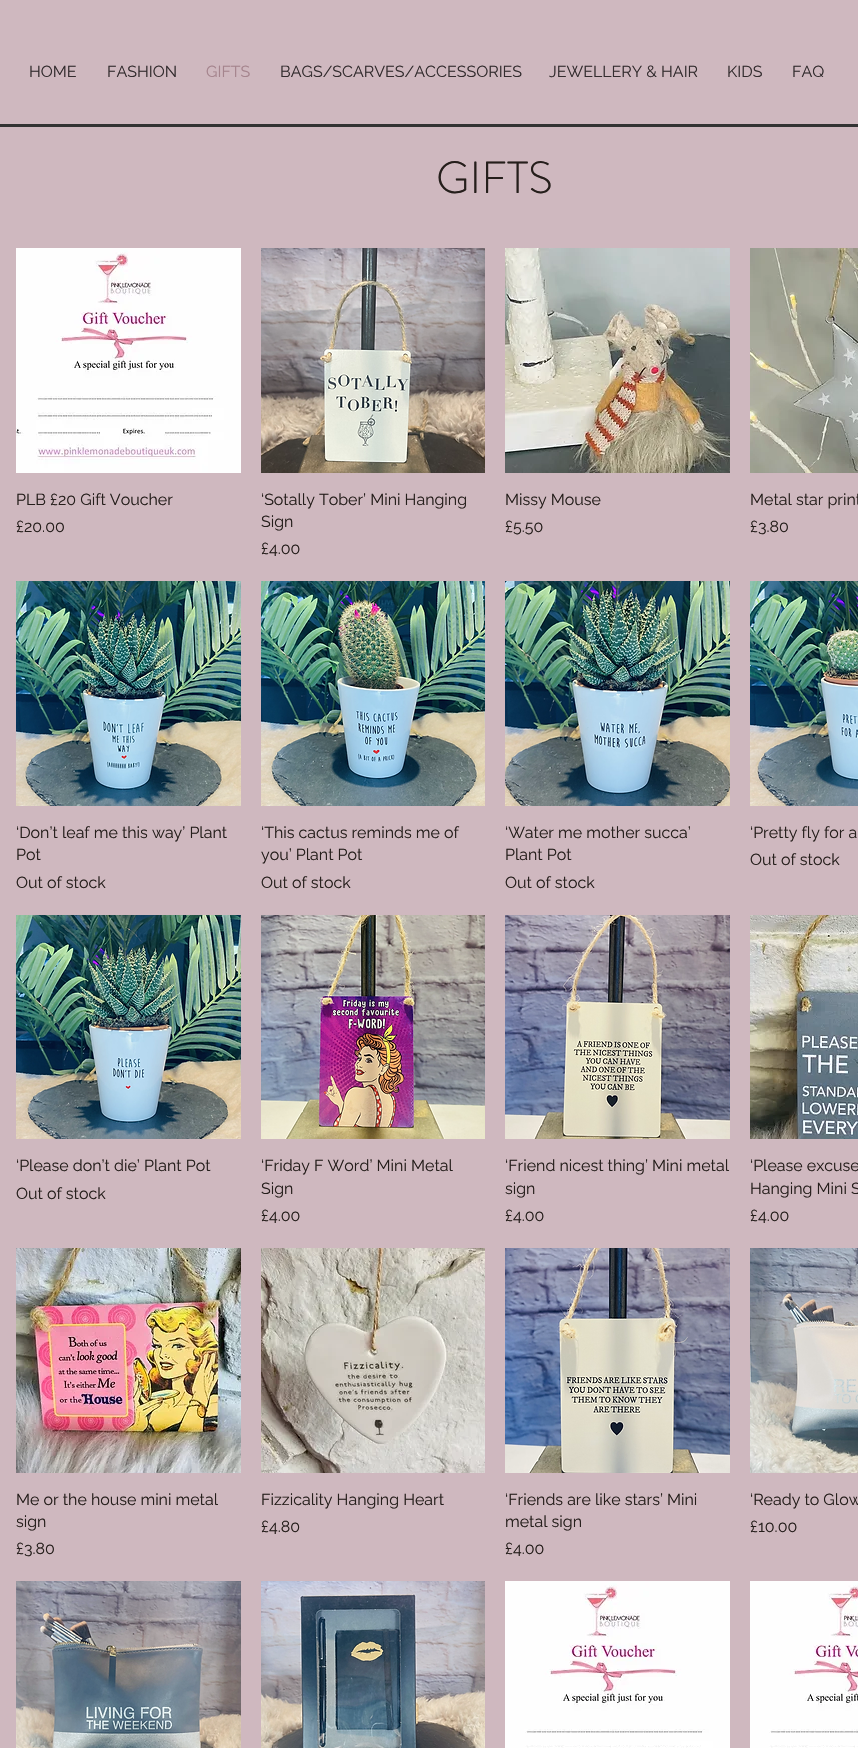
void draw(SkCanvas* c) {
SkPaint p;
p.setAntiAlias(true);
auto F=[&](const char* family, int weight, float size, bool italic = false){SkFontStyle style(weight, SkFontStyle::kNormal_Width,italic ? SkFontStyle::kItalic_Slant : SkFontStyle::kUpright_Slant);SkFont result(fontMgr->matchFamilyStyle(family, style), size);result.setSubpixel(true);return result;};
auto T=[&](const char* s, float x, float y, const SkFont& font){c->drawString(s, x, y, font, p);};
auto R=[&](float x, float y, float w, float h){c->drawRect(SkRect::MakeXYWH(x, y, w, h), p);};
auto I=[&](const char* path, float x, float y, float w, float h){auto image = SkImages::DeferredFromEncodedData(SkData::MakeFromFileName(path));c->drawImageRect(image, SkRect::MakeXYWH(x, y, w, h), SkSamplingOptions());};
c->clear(0xffcfb8bf);
auto f1 = F("Raleway",400,16);
p.setColor(0xff332c2e);
T("HOME",29,77,f1);
T("FASHION",107,77,f1);
p.setColor(0xffa5848d);
T("GIFTS",206,77,f1);
p.setColor(0xff332c2e);
T("BAGS/SCARVES/ACCESSORIES",280,77,f1);
T("JEWELLERY & HAIR",549,77,f1);
T("KIDS",727,77,f1);
T("FAQ",792,77,f1);
p.setColor(0xff333333);
R(0,124,858,3);
auto f2 = F("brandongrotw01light",300,45);
p.setColor(0xff251e1b);
T("GIFTS",436,193,f2);
I("1.png",16,248,225,225);
T("PLB £20 Gift Voucher",16,505,f1);
T("£20.00",16,532,f1);
I("2.png",261,248,224,225);
T("‘Sotally Tober’ Mini Hanging",261,505,f1);
T("Sign",261,527,f1);
T("£4.00",261,554,f1);
I("3.png",505,248,225,225);
T("Missy Mouse",505,505,f1);
T("£5.50",505,532,f1);
I("4.png",750,248,108,225);
T("Metal star print",750,505,f1);
T("£3.80",750,532,f1);
I("5.png",16,581,225,225);
T("‘Don’t leaf me this way’ Plant",16,838,f1);
T("Pot",16,860,f1);
T("Out of stock",16,888,f1);
I("6.png",261,581,224,225);
T("‘This cactus reminds me of",261,838,f1);
T("you’ Plant Pot",261,860,f1);
T("Out of stock",261,888,f1);
I("7.png",505,581,225,225);
T("‘Water me mother succa’",505,838,f1);
T("Plant Pot",505,860,f1);
T("Out of stock",505,888,f1);
I("8.png",750,581,108,225);
T("‘Pretty fly for a",750,838,f1);
T("Out of stock",750,865,f1);
I("9.png",16,915,225,224);
T("‘Please don’t die’ Plant Pot",16,1171,f1);
T("Out of stock",16,1199,f1);
I("10.png",261,915,224,224);
T("‘Friday F Word’ Mini Metal",261,1171,f1);
T("Sign",261,1194,f1);
T("£4.00",261,1221,f1);
I("11.png",505,915,225,224);
T("‘Friend nicest thing’ Mini metal",505,1171,f1);
T("sign",505,1194,f1);
T("£4.00",505,1221,f1);
I("12.png",750,915,108,224);
T("‘Please excuse",750,1171,f1);
T("Hanging Mini S",750,1194,f1);
T("£4.00",750,1221,f1);
I("13.png",16,1248,225,225);
T("Me or the house mini metal",16,1505,f1);
T("sign",16,1527,f1);
T("£3.80",16,1554,f1);
I("14.png",261,1248,224,225);
T("Fizzicality Hanging Heart",261,1505,f1);
T("£4.80",261,1532,f1);
I("15.png",505,1248,225,225);
T("‘Friends are like stars’ Mini",505,1505,f1);
T("metal sign",505,1527,f1);
T("£4.00",505,1554,f1);
I("16.png",750,1248,108,225);
T("‘Ready to Glow",750,1505,f1);
T("£10.00",750,1532,f1);
I("17.png",16,1581,225,167);
I("18.png",261,1581,224,167);
I("19.png",505,1581,225,167);
I("20.png",750,1581,108,167);
}
